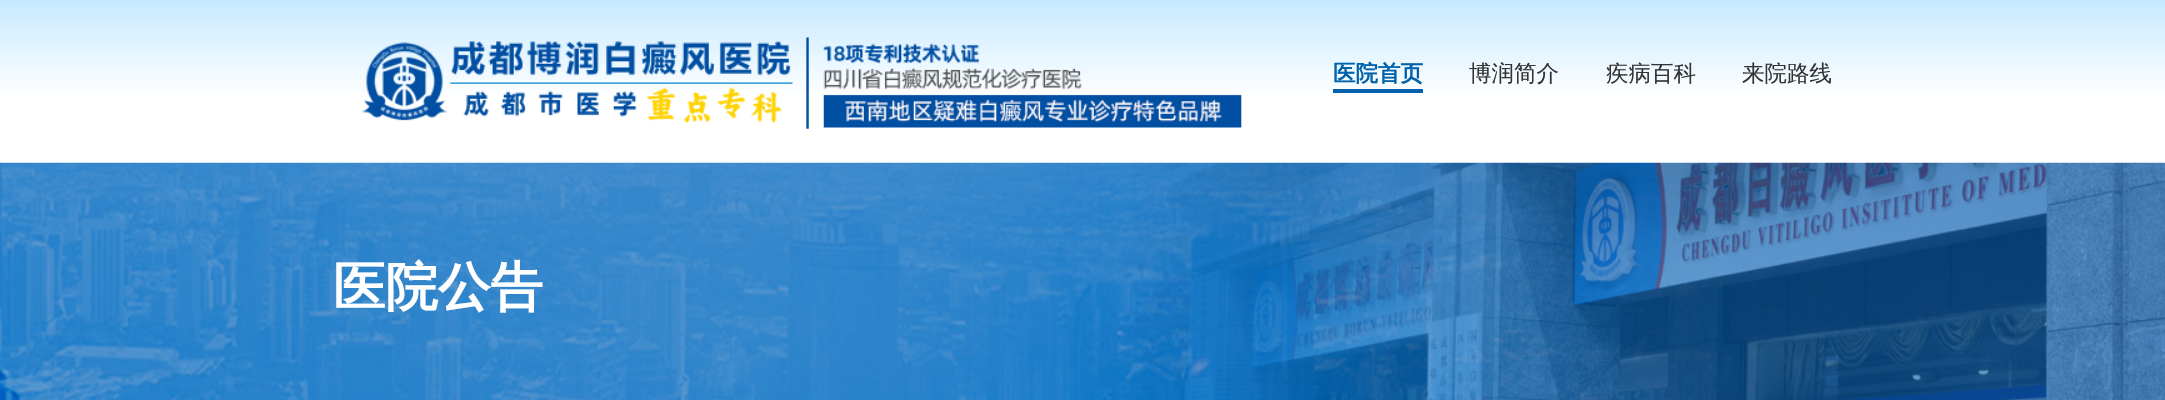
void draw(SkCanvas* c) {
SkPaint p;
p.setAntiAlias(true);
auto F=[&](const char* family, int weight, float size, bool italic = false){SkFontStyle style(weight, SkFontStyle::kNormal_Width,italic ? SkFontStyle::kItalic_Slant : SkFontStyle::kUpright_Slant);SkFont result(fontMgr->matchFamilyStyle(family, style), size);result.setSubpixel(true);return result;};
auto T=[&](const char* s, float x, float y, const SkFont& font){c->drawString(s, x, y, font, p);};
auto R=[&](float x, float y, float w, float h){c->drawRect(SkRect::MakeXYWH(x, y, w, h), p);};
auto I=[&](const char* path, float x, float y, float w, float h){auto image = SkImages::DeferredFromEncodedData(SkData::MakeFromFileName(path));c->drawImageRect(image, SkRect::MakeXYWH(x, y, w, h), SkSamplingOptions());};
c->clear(0xffffffff);
{
const SkColor colors[] = {0xffc6e9ff,0xffffffff};
const float stops[] = {0,.6};
const SkPoint ends[] = {{1083,0}, {1083,163}};
p.setShader(SkGradientShader::MakeLinear(ends, colors, stops, 2, SkTileMode::kClamp));
p.setAlpha(255);
}
R(0,0,2165,94);
I("1.png",361,37,881,92);
p.setShader(nullptr);
p.setColor(0xff0062ac);
R(1333,89,90,4);
auto f1 = F("WenQuanYi Zen Hei",700,22.5);
T("医院首页",1333,81,f1);
auto f2 = F("WenQuanYi Zen Hei",500,22.5);
p.setColor(0xff333333);
T("博润简介",1469,81,f2);
T("疾病百科",1606,81,f2);
T("来院路线",1742,81,f2);
I("2.png",0,162,2165,238);
auto f3 = F("WenQuanYi Zen Hei",700,52.5);
p.setColor(0xffffffff);
T("医院公告",333,305,f3);
}
